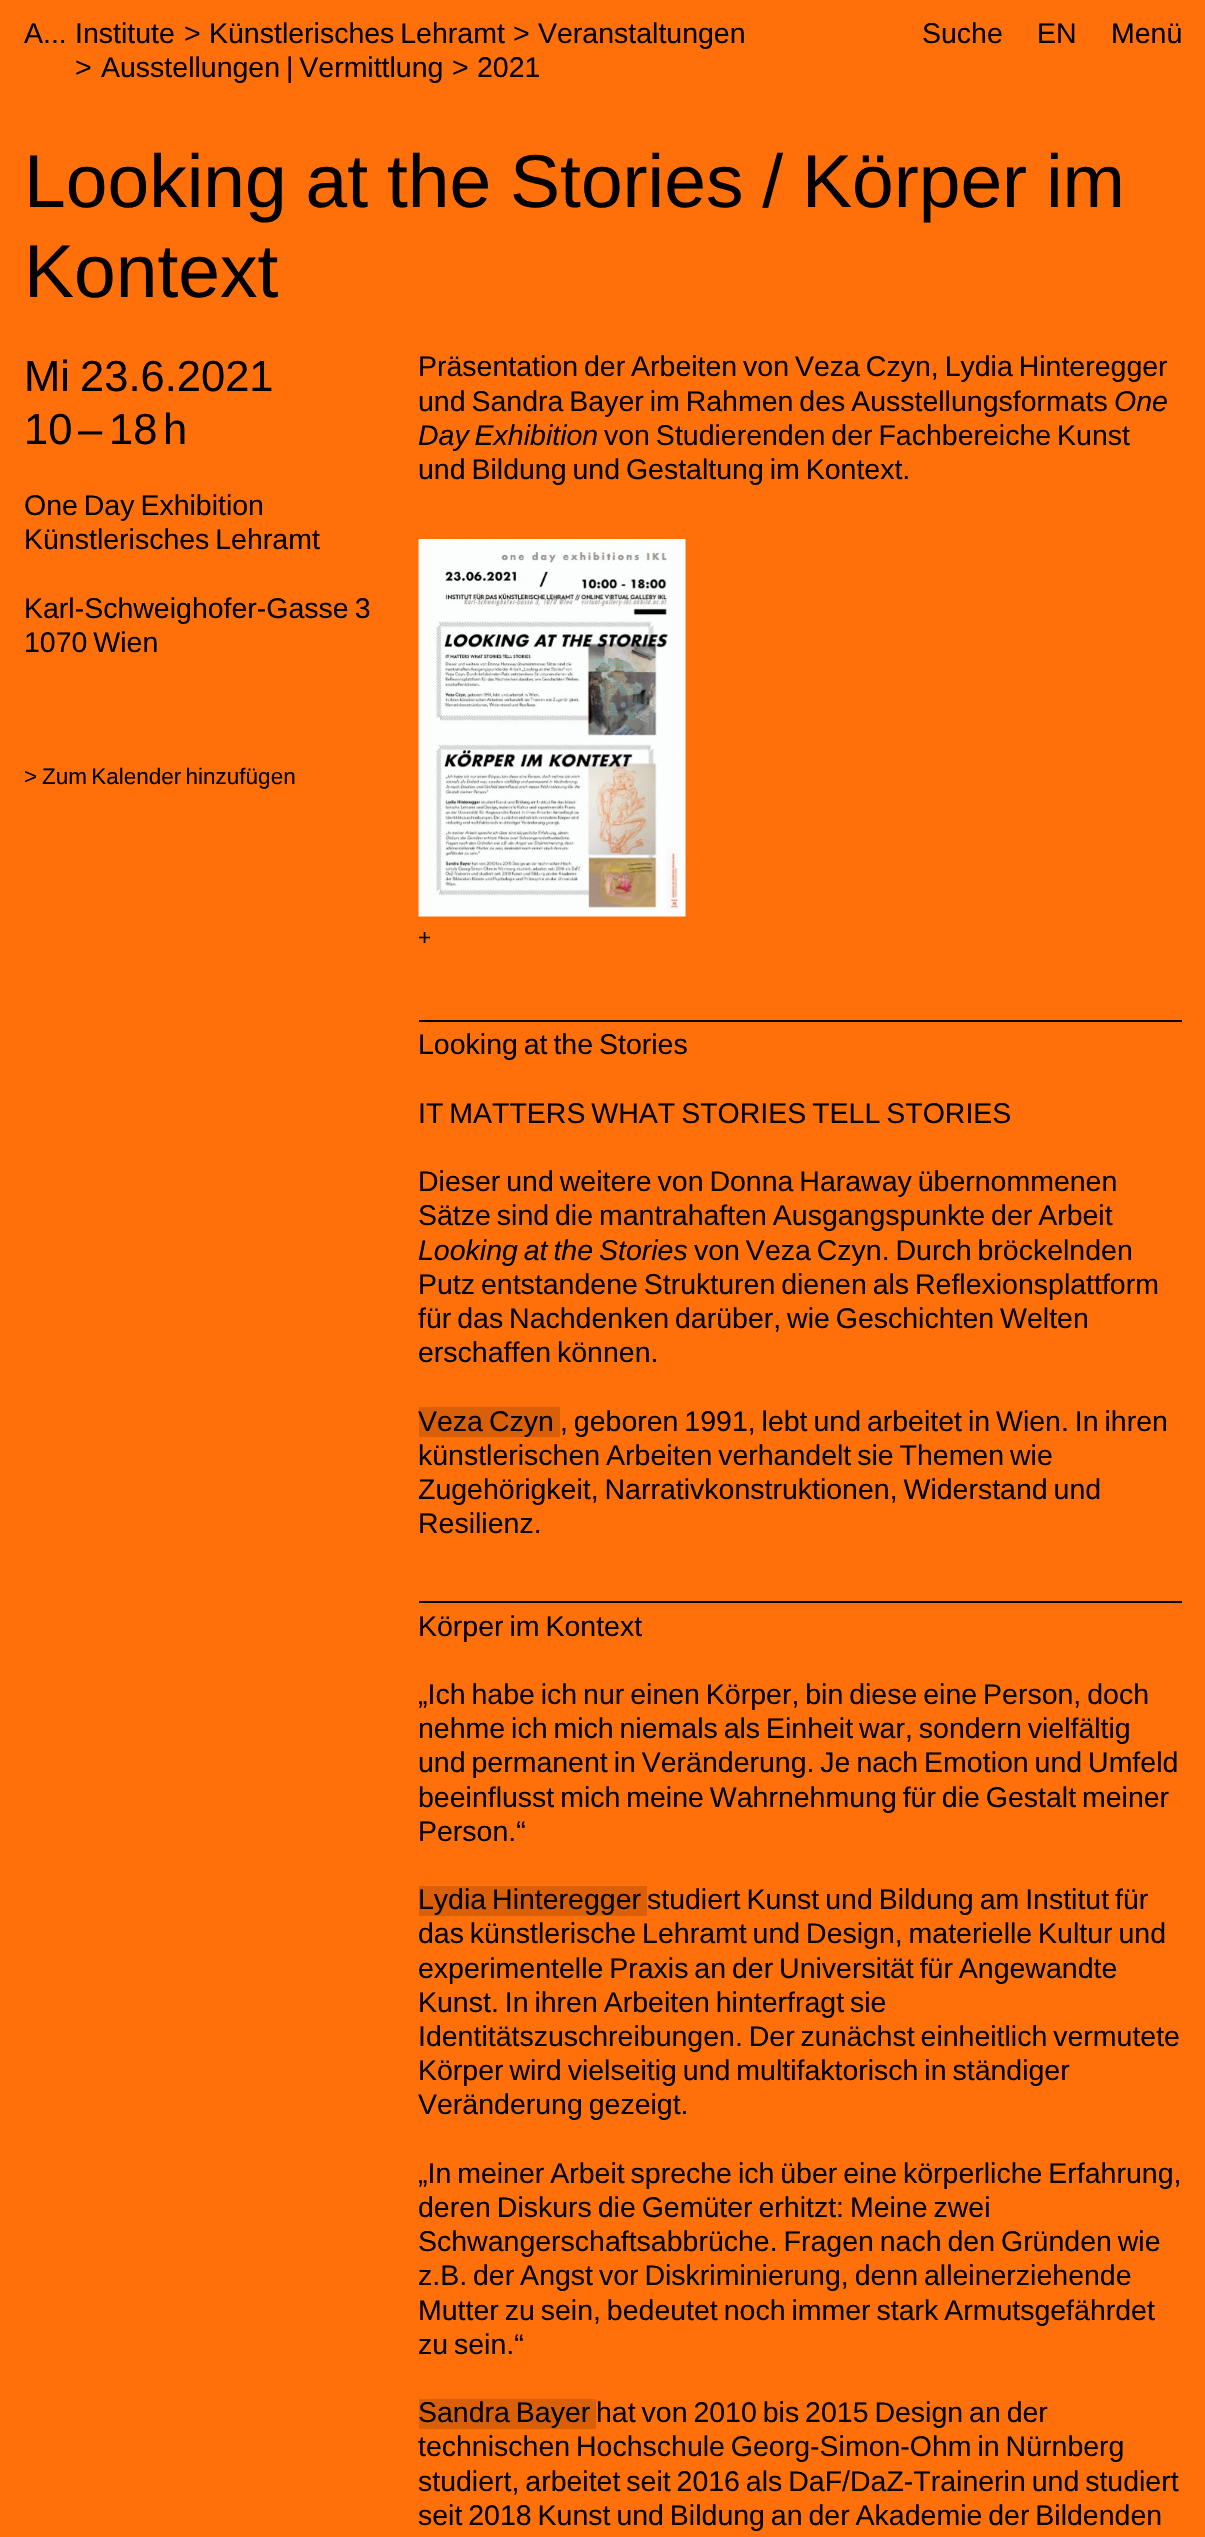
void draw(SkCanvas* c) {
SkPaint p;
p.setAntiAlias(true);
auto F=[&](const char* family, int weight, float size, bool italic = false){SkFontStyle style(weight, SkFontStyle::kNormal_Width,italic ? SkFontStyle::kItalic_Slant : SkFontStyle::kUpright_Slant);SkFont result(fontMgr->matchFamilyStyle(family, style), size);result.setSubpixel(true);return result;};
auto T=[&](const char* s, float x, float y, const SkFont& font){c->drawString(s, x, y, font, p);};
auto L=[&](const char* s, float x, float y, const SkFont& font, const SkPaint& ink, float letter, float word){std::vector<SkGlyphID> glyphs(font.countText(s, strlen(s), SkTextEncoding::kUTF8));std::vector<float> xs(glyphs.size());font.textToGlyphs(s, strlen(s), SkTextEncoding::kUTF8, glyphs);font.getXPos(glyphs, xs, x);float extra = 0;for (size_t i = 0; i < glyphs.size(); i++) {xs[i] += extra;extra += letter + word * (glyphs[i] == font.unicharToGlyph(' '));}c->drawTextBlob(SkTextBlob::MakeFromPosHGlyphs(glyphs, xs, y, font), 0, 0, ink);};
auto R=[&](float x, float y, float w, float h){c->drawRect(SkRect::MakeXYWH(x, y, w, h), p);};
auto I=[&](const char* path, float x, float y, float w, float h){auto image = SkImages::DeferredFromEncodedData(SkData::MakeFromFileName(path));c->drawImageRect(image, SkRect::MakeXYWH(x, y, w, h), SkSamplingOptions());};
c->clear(0xffff700a);
auto f1 = F("Liberation Sans",400,28.5);
p.setColor(0xff000000);
T("A...",24,43,f1);
T("Institute",75,43,f1);
T(">",184,43,f1);
L("Künstlerisches Lehramt",209,43,f1,p,0,-2);
T(">",513,43,f1);
T("Veranstaltungen",538,43,f1);
T(">",75,77,f1);
L("Ausstellungen | Vermittlung",101,77,f1,p,0,-2);
T(">",452,77,f1);
T("2021",477,77,f1);
T("Suche",922,43,f1);
T("EN",1037,43,f1);
T("Menü",1111,43,f1);
auto f2 = F("Liberation Sans",400,75);
L("Looking at the Stories / Körper im",24,207,f2,p,0,-2);
T("Kontext",24,297,f2);
auto f3 = F("Liberation Sans",400,43.5);
T("Mi",24,391,f3);
T("23.6.2021",80,391,f3);
T("10",24,444,f3);
T("–",78,444,f3);
T("18",109,444,f3);
T("h",163,444,f3);
L("One Day Exhibition",24,515,f1,p,0,-2);
L("Künstlerisches Lehramt",24,549,f1,p,0,-2);
L("Karl-Schweighofer-Gasse 3",24,618,f1,p,0,-2);
L("1070 Wien",24,652,f1,p,0,-2);
L("Präsentation der Arbeiten von Veza Czyn, Lydia Hinteregger",418,376,f1,p,0,-2);
L("und Sandra Bayer im Rahmen des Ausstellungsformats",418,411,f1,p,0,-2);
auto f4 = F("Liberation Sans",400,28.5,true);
T("One",1114,411,f4);
L("Day Exhibition",418,445,f4,p,0,-2);
L("von Studierenden der Fachbereiche Kunst",604,445,f1,p,0,-2);
L("und Bildung und Gestaltung im Kontext.",418,479,f1,p,0,-2);
I("1.png",418,539,268,378);
auto f5 = F("Liberation Sans",400,22.5);
T("+",418,945,f5);
R(419,1020,763,2);
L("Looking at the Stories",418,1054,f1,p,0,-2);
L("IT MATTERS WHAT STORIES TELL STORIES",418,1123,f1,p,0,-2);
L("Dieser und weitere von Donna Haraway übernommenen",418,1191,f1,p,0,-2);
L("Sätze sind die mantrahaften Ausgangspunkte der Arbeit",418,1225,f1,p,0,-2);
L("Looking at the Stories",418,1260,f4,p,0,-2);
L("von Veza Czyn. Durch bröckelnden",694,1260,f1,p,0,-2);
L("Putz entstandene Strukturen dienen als Reflexionsplattform",418,1294,f1,p,0,-2);
L("für das Nachdenken darüber, wie Geschichten Welten",418,1328,f1,p,0,-2);
L("erschaffen können.",418,1362,f1,p,0,-2);
p.setColor(0xffd95f09);
R(419,1407,141,30);
p.setColor(0xff000000);
L("Veza Czyn",418,1431,f1,p,0,-2);
L(", geboren 1991, lebt und arbeitet in Wien. In ihren",560,1431,f1,p,0,-2);
L("künstlerischen Arbeiten verhandelt sie Themen wie",418,1465,f1,p,0,-2);
L("Zugehörigkeit, Narrativkonstruktionen, Widerstand und",418,1499,f1,p,0,-2);
T("Resilienz.",418,1533,f1);
R(419,1601,763,2);
L("Körper im Kontext",418,1636,f1,p,0,-2);
L("„Ich habe ich nur einen Körper, bin diese eine Person, doch",418,1704,f1,p,0,-2);
L("nehme ich mich niemals als Einheit war, sondern vielfältig",418,1738,f1,p,0,-2);
L("und permanent in Veränderung. Je nach Emotion und Umfeld",418,1772,f1,p,0,-2);
L("beeinflusst mich meine Wahrnehmung für die Gestalt meiner",418,1807,f1,p,0,-2);
T("Person.“",418,1841,f1);
p.setColor(0xffd95f09);
R(419,1886,228,30);
p.setColor(0xff000000);
L("Lydia Hinteregger",418,1909,f1,p,0,-2);
L("studiert Kunst und Bildung am Institut für",647,1909,f1,p,0,-2);
L("das künstlerische Lehramt und Design, materielle Kultur und",418,1943,f1,p,0,-2);
L("experimentelle Praxis an der Universität für Angewandte",418,1978,f1,p,0,-2);
L("Kunst. In ihren Arbeiten hinterfragt sie",418,2012,f1,p,0,-2);
L("Identitätszuschreibungen. Der zunächst einheitlich vermutete",418,2046,f1,p,0,-2);
L("Körper wird vielseitig und multifaktorisch in ständiger",418,2080,f1,p,0,-2);
L("Veränderung gezeigt.",418,2114,f1,p,0,-2);
L("„In meiner Arbeit spreche ich über eine körperliche Erfahrung,",418,2183,f1,p,0,-2);
L("deren Diskurs die Gemüter erhitzt: Meine zwei",418,2217,f1,p,0,-2);
L("Schwangerschaftsabbrüche. Fragen nach den Gründen wie",418,2251,f1,p,0,-2);
L("z.B. der Angst vor Diskriminierung, denn alleinerziehende",418,2285,f1,p,0,-2);
L("Mutter zu sein, bedeutet noch immer stark Armutsgefährdet",418,2320,f1,p,0,-2);
L("zu sein.“",418,2354,f1,p,0,-2);
p.setColor(0xffd95f09);
R(419,2399,177,30);
p.setColor(0xff000000);
L("Sandra Bayer",418,2422,f1,p,0,-2);
L("hat von 2010 bis 2015 Design an der",596,2422,f1,p,0,-2);
L("technischen Hochschule Georg-Simon-Ohm in Nürnberg",418,2456,f1,p,0,-2);
L("studiert, arbeitet seit 2016 als DaF/DaZ-Trainerin und studiert",418,2491,f1,p,0,-2);
L("seit 2018 Kunst und Bildung an der Akademie der Bildenden",418,2525,f1,p,0,-2);
T(">",24,784,f5);
L("Zum Kalender hinzufügen",42,784,f5,p,0,-2);
}
